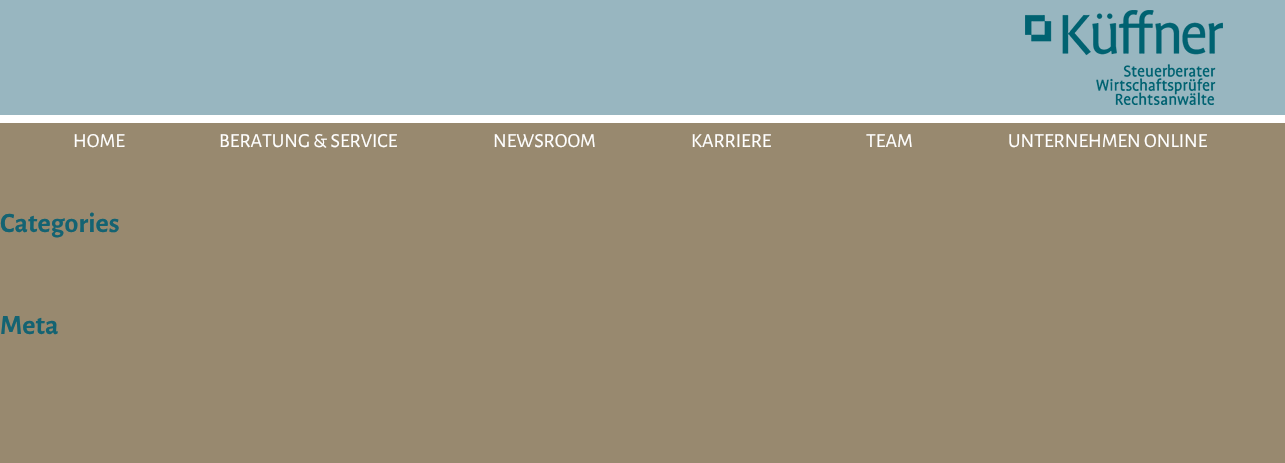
void draw(SkCanvas* c) {
SkPaint p;
p.setAntiAlias(true);
auto F=[&](const char* family, int weight, float size, bool italic = false){SkFontStyle style(weight, SkFontStyle::kNormal_Width,italic ? SkFontStyle::kItalic_Slant : SkFontStyle::kUpright_Slant);SkFont result(fontMgr->matchFamilyStyle(family, style), size);result.setSubpixel(true);return result;};
auto T=[&](const char* s, float x, float y, const SkFont& font){c->drawString(s, x, y, font, p);};
auto R=[&](float x, float y, float w, float h){c->drawRect(SkRect::MakeXYWH(x, y, w, h), p);};
auto I=[&](const char* path, float x, float y, float w, float h){auto image = SkImages::DeferredFromEncodedData(SkData::MakeFromFileName(path));c->drawImageRect(image, SkRect::MakeXYWH(x, y, w, h), SkSamplingOptions());};
c->clear(0xff98896f);
p.setColor(0xff98b6c0);
R(0,0,1285,115);
p.setColor(0xffffffff);
R(0,115,1285,8);
I("1.png",1025,10,198,95);
auto f1 = F("Alegreya Sans",400,20);
T("HOME",73,147,f1);
T("BERATUNG & SERVICE",219,147,f1);
T("NEWSROOM",493,147,f1);
T("KARRIERE",691,147,f1);
T("TEAM",866,147,f1);
T("UNTERNEHMEN ONLINE",1008,147,f1);
auto f2 = F("Alegreya Sans",700,28);
p.setColor(0xff146372);
T("Categories",0,232,f2);
T("Meta",0,334,f2);
}
